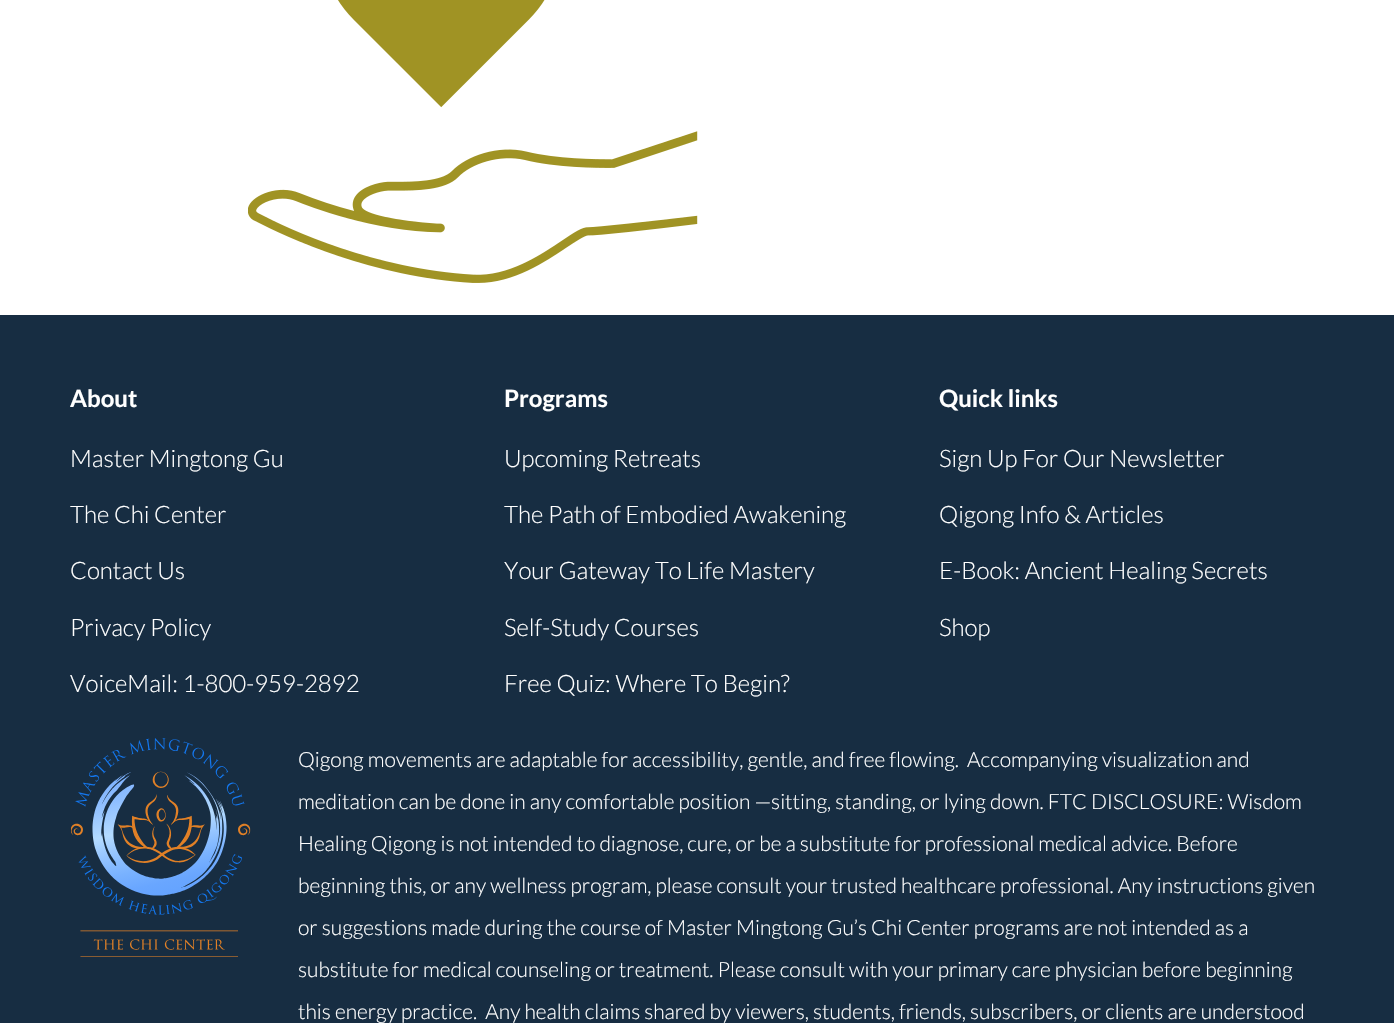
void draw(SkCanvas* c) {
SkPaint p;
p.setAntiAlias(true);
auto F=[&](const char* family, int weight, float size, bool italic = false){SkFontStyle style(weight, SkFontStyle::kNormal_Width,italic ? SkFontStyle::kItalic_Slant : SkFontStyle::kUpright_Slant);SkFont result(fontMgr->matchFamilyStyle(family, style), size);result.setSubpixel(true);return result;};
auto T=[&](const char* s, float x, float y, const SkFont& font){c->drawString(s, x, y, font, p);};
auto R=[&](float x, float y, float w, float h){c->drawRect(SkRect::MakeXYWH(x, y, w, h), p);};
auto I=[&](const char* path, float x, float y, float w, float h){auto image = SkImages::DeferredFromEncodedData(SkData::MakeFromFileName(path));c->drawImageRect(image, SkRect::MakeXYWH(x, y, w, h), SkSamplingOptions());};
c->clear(0xffffffff);
I("1.png",248,0,450,283);
p.setColor(0xff172d42);
R(0,315,1394,708);
auto f1 = F("Lato",700,24);
p.setColor(0xffffffff);
T("About",70,407,f1);
auto f2 = F("Lato",300,24);
T("Master Mingtong Gu",70,467,f2);
T("The Chi Center",70,523,f2);
T("Contact Us",70,579,f2);
T("Privacy Policy",70,636,f2);
T("VoiceMail: 1-800-959-2892",70,692,f2);
T("Programs",504,407,f1);
T("Upcoming Retreats",504,467,f2);
T("The Path of Embodied Awakening",504,523,f2);
T("Your Gateway To Life Mastery",504,579,f2);
T("Self-Study Courses",504,636,f2);
T("Free Quiz: Where To Begin?",504,692,f2);
T("Quick links",939,407,f1);
T("Sign Up For Our Newsletter",939,467,f2);
T("Qigong Info & Articles",939,523,f2);
T("E-Book: Ancient Healing Secrets",939,579,f2);
T("Shop",939,636,f2);
I("2.png",71,738,180,219);
auto f3 = F("Lato",300,21);
T("Qigong movements are adaptable for accessibility, gentle, and free flowing.  Accompanying visualization and",298,767,f3);
T("meditation can be done in any comfortable position —sitting, standing, or lying down. FTC DISCLOSURE: Wisdom",298,809,f3);
T("Healing Qigong is not intended to diagnose, cure, or be a substitute for professional medical advice. Before",298,851,f3);
T("beginning this, or any wellness program, please consult your trusted healthcare professional. Any instructions given",298,893,f3);
T("or suggestions made during the course of Master Mingtong Gu’s Chi Center programs are not intended as a",298,935,f3);
T("substitute for medical counseling or treatment. Please consult with your primary care physician before beginning",298,977,f3);
T("this energy practice.  Any health claims shared by viewers, students, friends, subscribers, or clients are understood",298,1019,f3);
}
